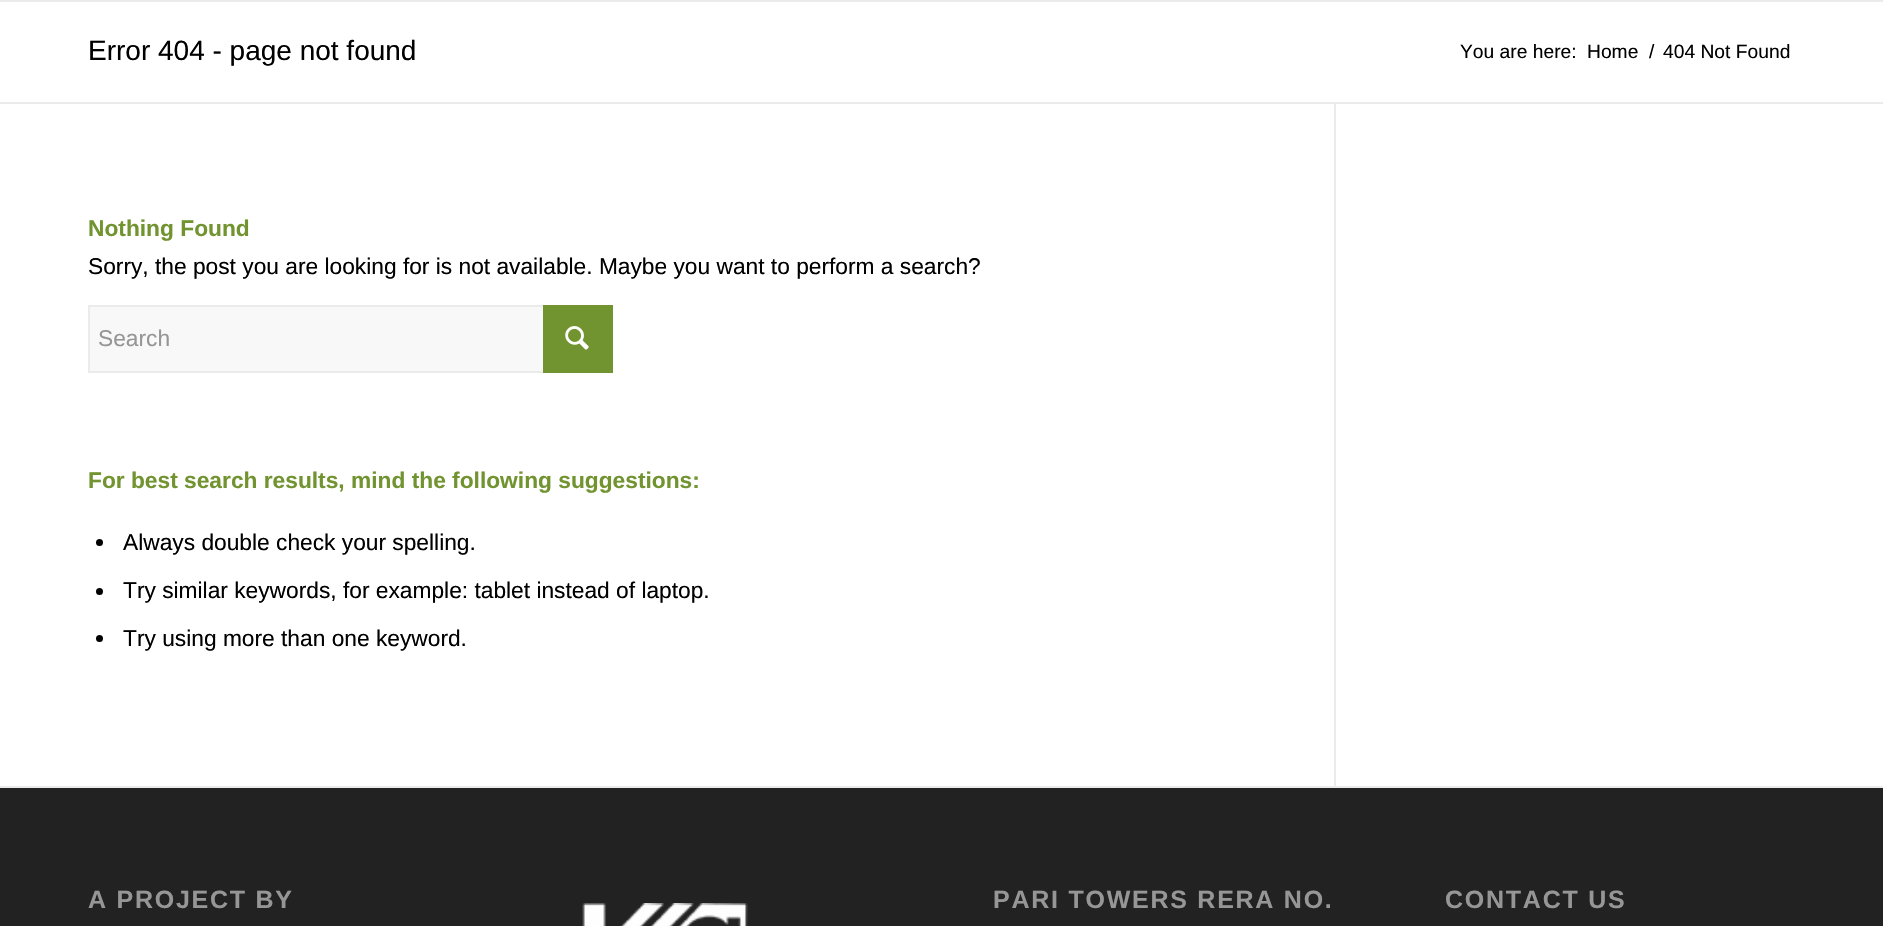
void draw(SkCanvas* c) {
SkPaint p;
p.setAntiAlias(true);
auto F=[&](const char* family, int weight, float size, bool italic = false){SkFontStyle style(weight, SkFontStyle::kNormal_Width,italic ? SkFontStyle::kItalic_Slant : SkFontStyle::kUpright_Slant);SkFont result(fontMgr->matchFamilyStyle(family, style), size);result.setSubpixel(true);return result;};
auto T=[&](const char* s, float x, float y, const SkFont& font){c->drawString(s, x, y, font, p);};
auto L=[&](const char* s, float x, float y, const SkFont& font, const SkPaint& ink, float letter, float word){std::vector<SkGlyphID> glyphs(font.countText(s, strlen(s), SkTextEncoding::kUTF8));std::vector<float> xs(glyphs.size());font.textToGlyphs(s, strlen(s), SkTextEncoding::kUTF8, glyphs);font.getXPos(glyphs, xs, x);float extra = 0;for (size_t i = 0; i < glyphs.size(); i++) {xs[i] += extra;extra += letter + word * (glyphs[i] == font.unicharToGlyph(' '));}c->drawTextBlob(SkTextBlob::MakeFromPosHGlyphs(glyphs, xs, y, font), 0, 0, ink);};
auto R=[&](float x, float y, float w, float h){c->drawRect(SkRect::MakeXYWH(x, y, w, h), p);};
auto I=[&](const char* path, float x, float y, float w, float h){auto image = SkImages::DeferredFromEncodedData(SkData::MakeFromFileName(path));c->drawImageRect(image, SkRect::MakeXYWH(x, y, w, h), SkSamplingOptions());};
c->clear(0xffffffff);
p.setColor(0xffebebeb);
R(0,0,1883,2);
auto f1 = F("Liberation Sans",400,28);
p.setColor(0xff000000);
T("Error 404 - page not found",88,60,f1);
auto f2 = F("Liberation Sans",400,19.25);
T("You are here:",1460,58,f2);
T("Home",1587,58,f2);
T("/",1649,58,f2);
T("404 Not Found",1663,58,f2);
p.setColor(0xffebebeb);
R(0,102,1883,2);
R(1334,103,2,683);
auto f3 = F("Liberation Sans",700,22.75);
p.setColor(0xff719430);
T("Nothing Found",88,236,f3);
auto f4 = F("Liberation Sans",400,22.75);
p.setColor(0xff000000);
T("Sorry, the post you are looking for is not available. Maybe you want to perform a search?",88,274,f4);
p.setColor(0xfff8f8f8);
R(90,307,453,64);
p.setStroke(true);
p.setStrokeWidth(2);
p.setColor(0xffebebeb);
c->drawRect(SkRect::MakeXYWH(89,306,523,66),p);
p.setStroke(false);
p.setColor(0xff969696);
T("Search",98,346,f4);
p.setColor(0xff719430);
R(543,305,70,68);
I("1.png",565,326,24,24);
T("For best search results, mind the following suggestions:",88,488,f3);
p.setColor(0xff000000);
c->drawCircle(99.5,542.5,3.5,p);
T("Always double check your spelling.",123,550,f4);
c->drawCircle(99.5,591.5,3.5,p);
T("Try similar keywords, for example: tablet instead of laptop.",123,598,f4);
c->drawCircle(99.5,638.5,3.5,p);
T("Try using more than one keyword.",123,646,f4);
p.setColor(0xff222222);
R(0,788,1883,138);
p.setColor(0xffebebeb);
R(0,786,1883,2);
auto f5 = F("Liberation Sans",700,25);
p.setColor(0xff969696);
L("A PROJECT BY",88,908,f5,p,1.75,0);
L("PARI TOWERS RERA NO.",993,908,f5,p,1.75,0);
L("CONTACT US",1445,908,f5,p,1.75,0);
I("2.png",582,903,166,23);
}
